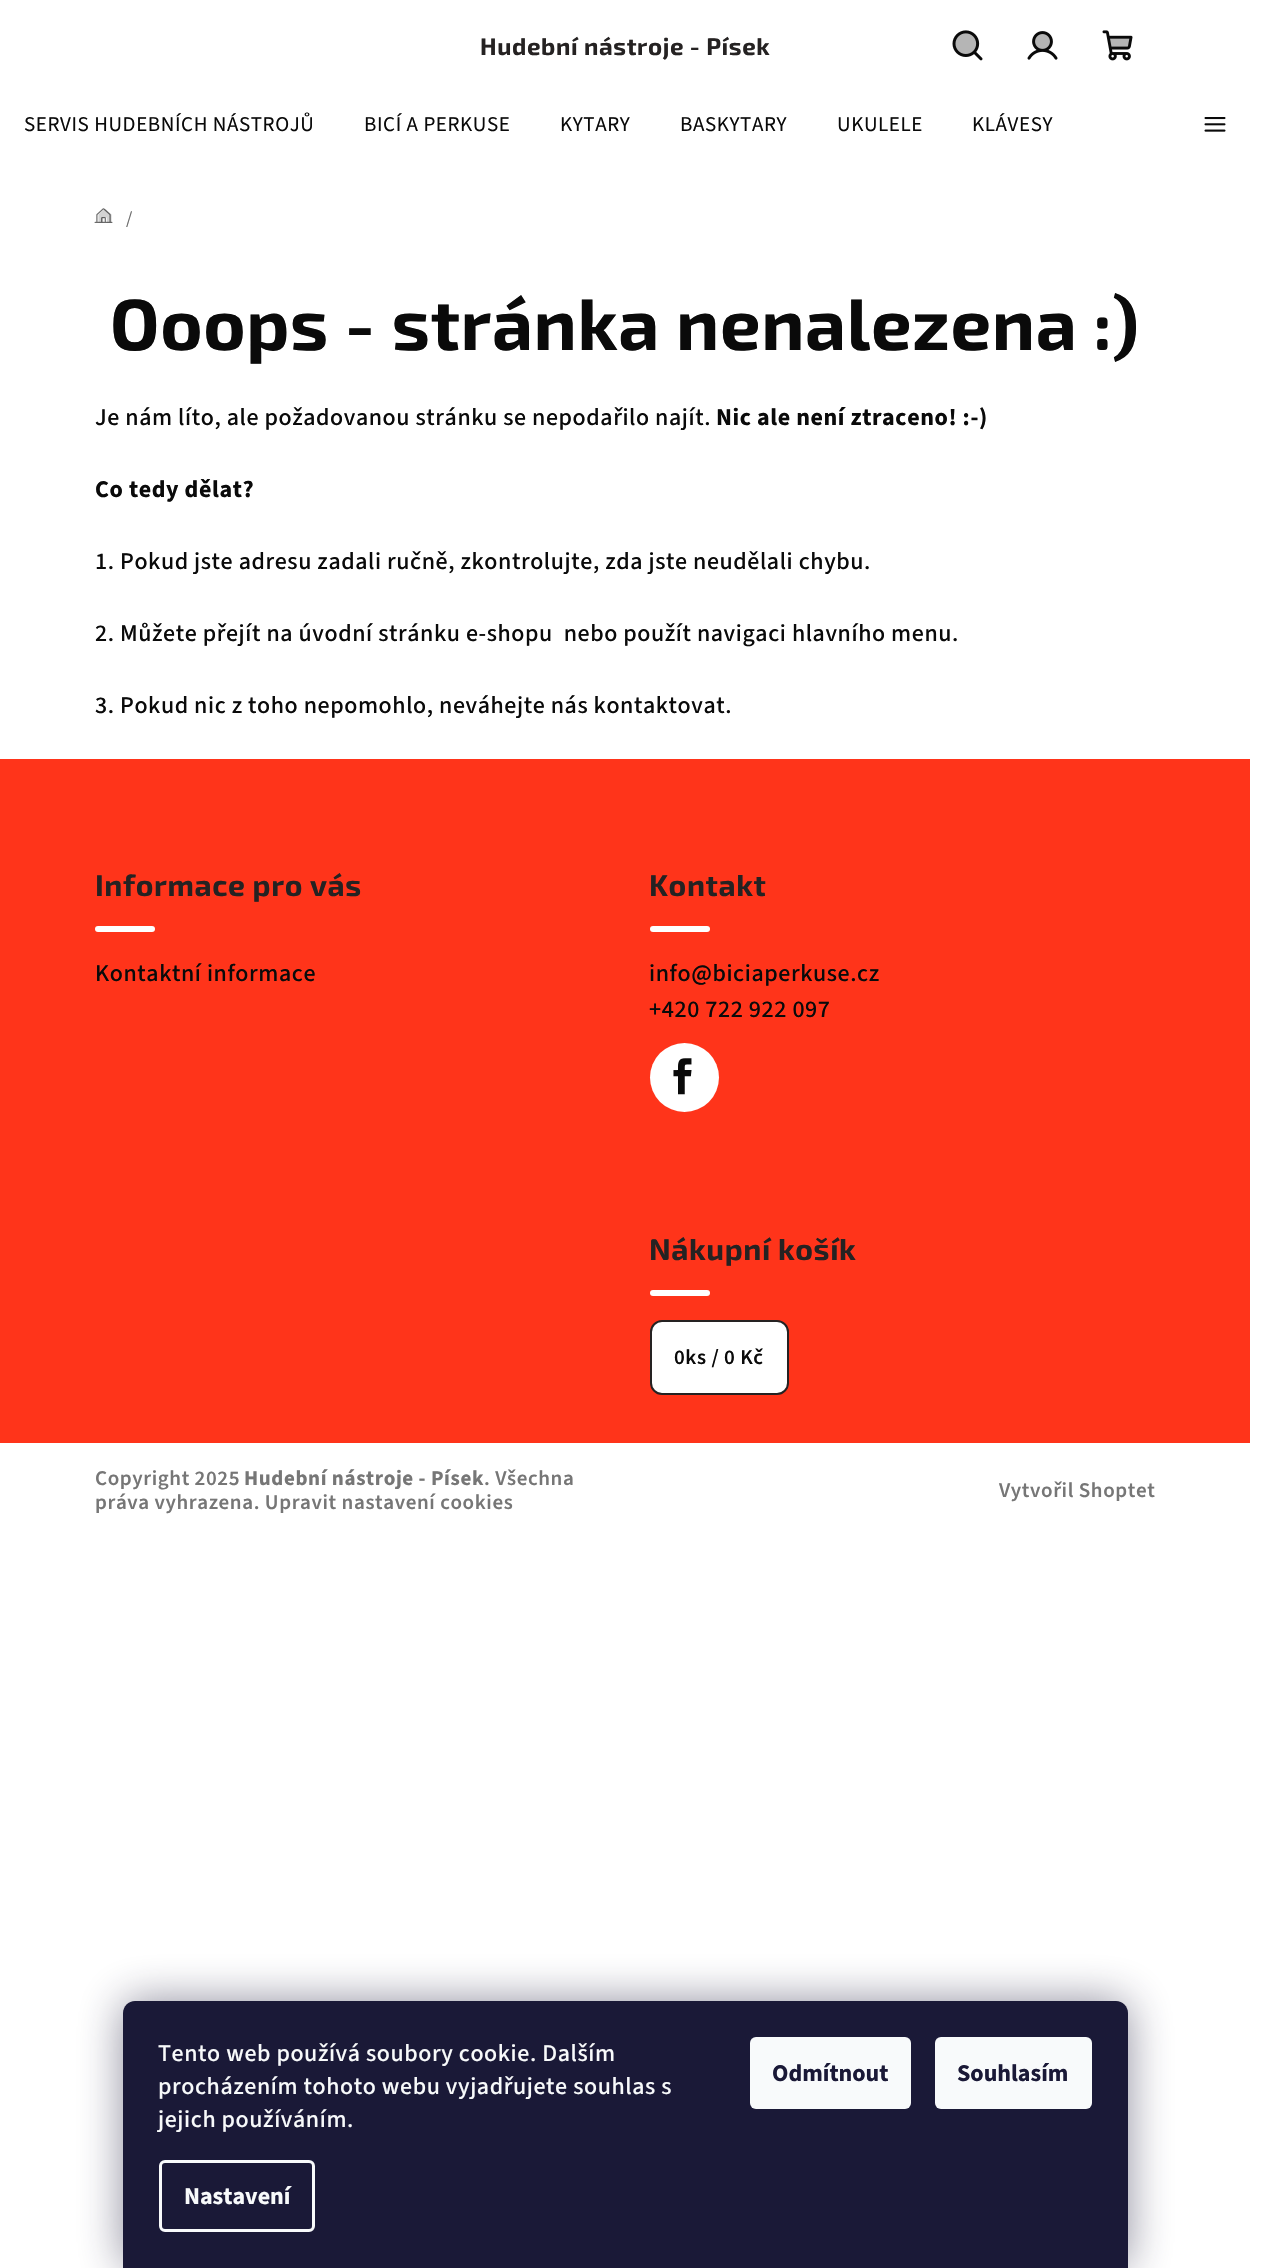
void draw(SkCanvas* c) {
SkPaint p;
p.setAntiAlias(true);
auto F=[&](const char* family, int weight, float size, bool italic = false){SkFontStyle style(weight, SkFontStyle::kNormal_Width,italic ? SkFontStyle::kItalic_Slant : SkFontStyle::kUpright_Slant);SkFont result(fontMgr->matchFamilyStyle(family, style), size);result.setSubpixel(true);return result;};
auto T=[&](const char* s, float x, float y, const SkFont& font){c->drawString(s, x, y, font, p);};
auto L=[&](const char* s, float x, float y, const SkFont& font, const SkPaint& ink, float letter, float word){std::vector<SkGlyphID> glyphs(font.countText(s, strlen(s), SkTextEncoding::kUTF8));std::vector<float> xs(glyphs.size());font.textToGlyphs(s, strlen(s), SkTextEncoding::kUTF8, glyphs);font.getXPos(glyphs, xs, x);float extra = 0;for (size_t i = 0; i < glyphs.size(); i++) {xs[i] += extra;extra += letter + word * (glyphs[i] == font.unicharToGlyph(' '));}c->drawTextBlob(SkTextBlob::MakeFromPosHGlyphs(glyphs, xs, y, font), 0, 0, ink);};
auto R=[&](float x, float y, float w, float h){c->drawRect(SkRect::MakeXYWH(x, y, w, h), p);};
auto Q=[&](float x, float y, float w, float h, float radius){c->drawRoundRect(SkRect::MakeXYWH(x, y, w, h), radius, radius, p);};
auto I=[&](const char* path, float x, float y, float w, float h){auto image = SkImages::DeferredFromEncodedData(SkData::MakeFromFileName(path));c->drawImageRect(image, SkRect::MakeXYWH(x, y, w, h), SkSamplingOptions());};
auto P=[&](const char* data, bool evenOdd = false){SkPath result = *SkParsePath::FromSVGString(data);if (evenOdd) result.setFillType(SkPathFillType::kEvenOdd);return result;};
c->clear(0xffffffff);
auto f1 = F("Exo 2",700,24);
p.setColor(0xff252222);
L("Hudební nástroje - Písek",480,55,f1,p,.6,0);
I("1.png",952,30,31,31);
p.setColor(0x4d0a0a0a);
c->drawPath(P("M966 55.5c15.5 0 15.5-23.5 0-23.5c-15.5 0-15.5 23.5 0 23.5z"),p);
I("2.png",1027,31,31,29);
c->drawPath(P("M1042.5 50.5c11.5 0 11.5-18 0-18c-11.5 0-11.5 18 0 18z"),p);
I("3.png",1102,30,31,31);
c->drawPath(P("M1110.5 48h14c4 0 4.5 .5 5-3l1.5-8h-22.5z"),p);
auto f2 = F("Source Sans 3",400,21);
p.setColor(0xff0a0a0a);
L("SERVIS HUDEBNÍCH NÁSTROJŮ",24,131,f2,p,.6,0);
L("BICÍ A PERKUSE",364,131,f2,p,.6,0);
L("KYTARY",560,131,f2,p,.6,0);
L("BASKYTARY",680,131,f2,p,.6,0);
L("UKULELE",837,131,f2,p,.6,0);
L("KLÁVESY",972,131,f2,p,.6,0);
I("4.png",1204,117,22,15);
I("5.png",94,208,19,15);
I("6.png",98,209,14,14);
auto f3 = F("Source Sans 3",400,18);
p.setColor(0xff6c6c6c);
L("/",126,224,f3,p,1,0);
auto f4 = F("Exo 2",700,72);
p.setColor(0xff0a0a0a);
L("Ooops - stránka nenalezena :)",110,350,f4,p,.6,0);
auto f5 = F("Source Sans 3",500,24);
L("Je nám líto, ale požadovanou stránku se nepodařilo najít.",95,425,f5,p,.6,0);
auto f6 = F("Source Sans 3",700,24);
L("Nic ale není ztraceno! :-)",716,425,f6,p,.6,0);
L("Co tedy dělat?",95,497,f6,p,.6,0);
L("1. Pokud jste adresu zadali ručně, zkontrolujte, zda jste neudělali chybu.",95,569,f5,p,.6,0);
L("2. Můžete přejít na úvodní stránku e-shopu  nebo použít navigaci hlavního menu.",95,641,f5,p,.6,0);
L("3. Pokud nic z toho nepomohlo, neváhejte nás kontaktovat.",95,713,f5,p,.6,0);
p.setColor(0xffff341a);
R(0,759,1250,684);
auto f7 = F("Exo 2",700,30);
p.setColor(0xff252222);
L("Informace pro vás",95,896,f7,p,.6,0);
p.setColor(0xffffffff);
Q(95,926,60,6,3);
p.setColor(0xff0a0a0a);
L("Kontaktní informace",95,981,f5,p,.6,0);
p.setColor(0xff252222);
L("Kontakt",649,896,f7,p,.6,0);
p.setColor(0xffffffff);
Q(650,926,60,6,3);
p.setColor(0xff0a0a0a);
L("info@biciaperkuse.cz",649,981,f5,p,.6,0);
L("+420 722 922 097",649,1017,f5,p,.6,0);
p.setColor(0xffffffff);
c->drawCircle(684.5,1077.5,34.5,p);
I("7.png",673,1058,19,37);
p.setColor(0xff252222);
L("Nákupní košík",649,1260,f7,p,.6,0);
p.setColor(0xffffffff);
Q(650,1290,60,6,3);
c->drawRoundRect(SkRect::MakeXYWH(651,1321,137,73),11,11,p);
p.setStroke(true);
p.setStrokeWidth(2);
p.setColor(0xff252222);
c->drawRoundRect(SkRect::MakeXYWH(651,1321,137,73),11,11,p);
auto f8 = F("Source Sans 3",600,21);
p.setStroke(false);
p.setColor(0xff0a0a0a);
L("0ks / 0 Kč",674,1364,f8,p,.6,0);
p.setColor(0xff767676);
L("Copyright 2025",95,1485,f8,p,.6,0);
auto f9 = F("Source Sans 3",700,21);
L("Hudební nástroje - Písek",244,1485,f9,p,.6,0);
L(". Všechna",484,1485,f8,p,.6,0);
L("práva vyhrazena. Upravit nastavení cookies",95,1509,f8,p,.6,0);
L("Vytvořil Shoptet",999,1497,f8,p,.6,0);
p.setColor(0x801b1939);
p.setMaskFilter(SkMaskFilter::MakeBlur(kNormal_SkBlurStyle, 22.5));
c->drawRoundRect(SkRect::MakeXYWH(123,2001,1005,267),12,12,p);
p.setMaskFilter(nullptr);
p.setColor(0xff1a1937);
c->drawPath(P("M135 2001h981c6.5 0 12 5.5 12 12v255h-1005v-255c0-6.5 5.5-12 12-12z"),p);
p.setColor(0xfff8fafb);
L("Tento web používá soubory cookie. Dalším",158,2061,f5,p,.6,0);
L("procházením tohoto webu vyjadřujete souhlas s",158,2094,f5,p,.6,0);
L("jejich používáním.",158,2127,f5,p,.6,0);
p.setStroke(true);
p.setStrokeWidth(3);
c->drawRoundRect(SkRect::MakeXYWH(160.5,2161.5,153,69),4.5,4.5,p);
p.setStroke(false);
T("Nastavení",184,2204,f6);
Q(750,2037,161,72,6);
p.setColor(0xff1a1937);
T("Odmítnout",772,2081,f6);
p.setColor(0xfff8fafb);
Q(935,2037,157,72,6);
p.setColor(0xff1a1937);
T("Souhlasím",957,2081,f6);
}
